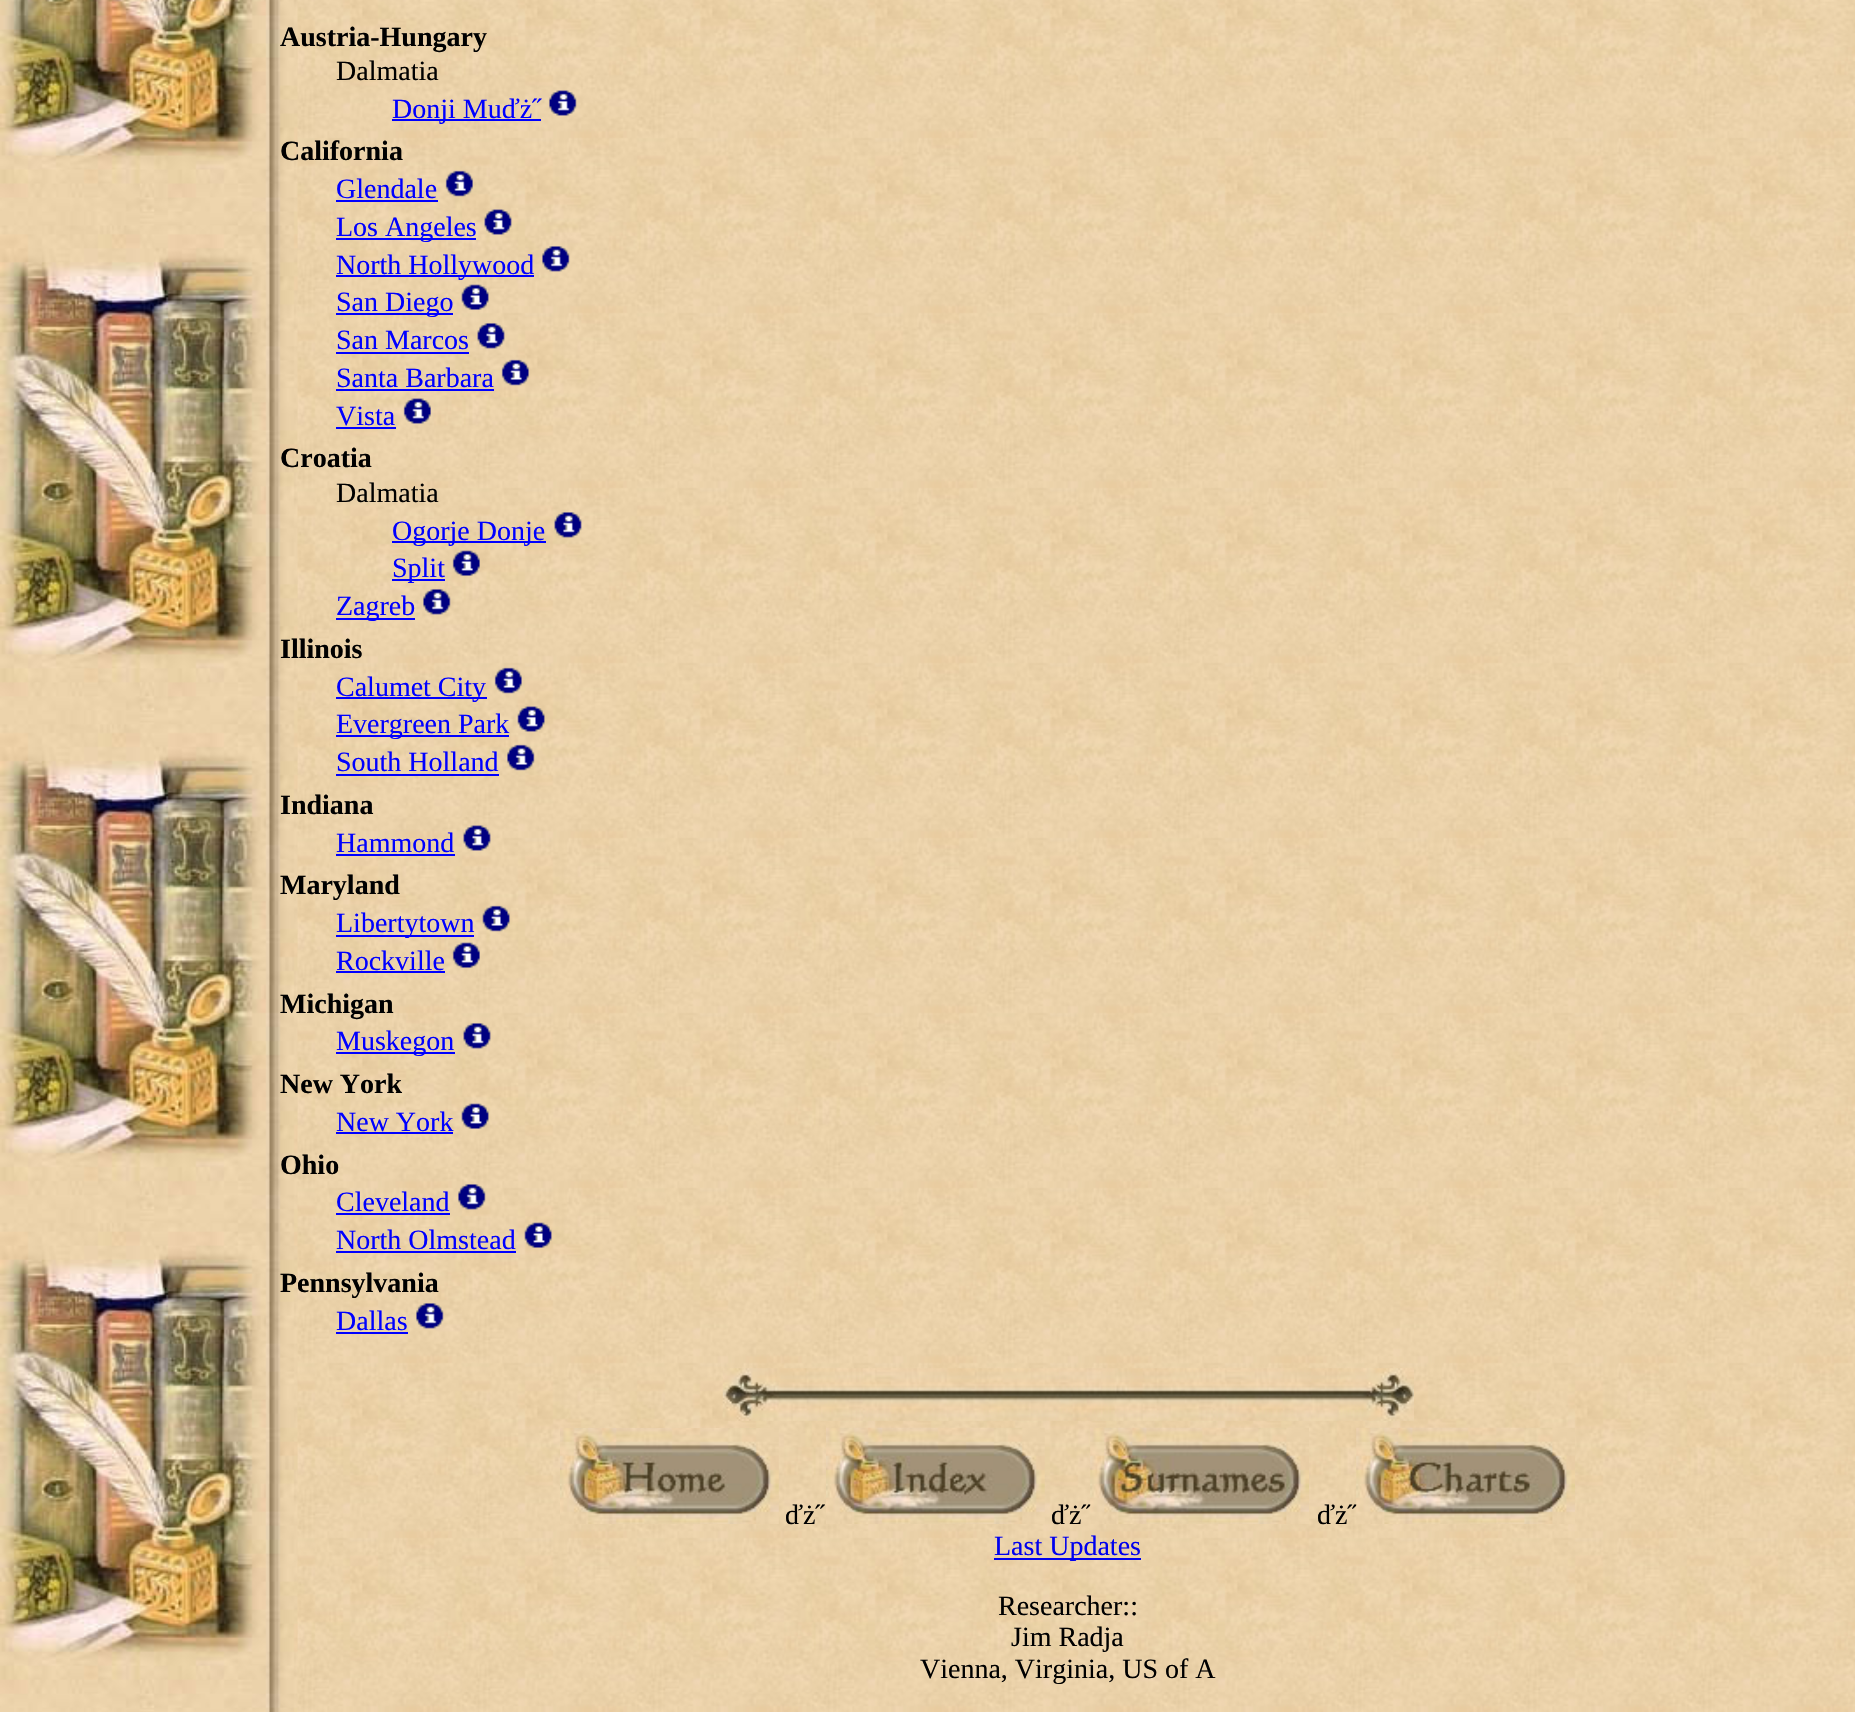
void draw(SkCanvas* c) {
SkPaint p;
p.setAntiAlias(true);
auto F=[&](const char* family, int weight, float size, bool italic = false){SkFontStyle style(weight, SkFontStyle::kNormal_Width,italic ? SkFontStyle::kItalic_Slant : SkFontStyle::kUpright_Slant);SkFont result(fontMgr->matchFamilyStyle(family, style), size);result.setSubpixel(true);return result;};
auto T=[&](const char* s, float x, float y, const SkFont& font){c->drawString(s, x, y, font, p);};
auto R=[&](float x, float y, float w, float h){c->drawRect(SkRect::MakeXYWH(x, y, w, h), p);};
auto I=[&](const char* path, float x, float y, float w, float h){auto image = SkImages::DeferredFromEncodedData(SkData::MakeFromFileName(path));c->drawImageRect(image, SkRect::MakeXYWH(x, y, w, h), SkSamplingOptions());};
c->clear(0xffffffff);
I("1.png",297,0,1558,1712);
I("2.png",0,0,298,1712);
auto f1 = F("Liberation Serif",700,28);
p.setColor(0xff000000);
T("Austria-Hungary",280,46,f1);
auto f2 = F("Liberation Serif",400,28);
T("Dalmatia",336,80,f2);
p.setColor(0xff0000ff);
R(392,119,149,2);
T("Donji Muďż˝",392,118,f2);
I("3.png",549,90,28,26);
p.setColor(0xff000000);
T("California",280,160,f1);
p.setColor(0xff0000ff);
T("Glendale",336,198,f2);
R(336,200,102,2);
I("4.png",445,170,28,27);
R(336,238,140,2);
T("Los Angeles",336,236,f2);
I("5.png",484,209,28,26);
R(336,275,198,2);
T("North Hollywood",336,274,f2);
I("6.png",542,246,28,26);
R(336,313,117,2);
T("San Diego",336,311,f2);
I("7.png",461,284,28,26);
T("San Marcos",336,349,f2);
R(336,352,133,2);
I("8.png",477,323,28,26);
T("Santa Barbara",336,387,f2);
R(336,389,158,2);
I("9.png",501,359,28,27);
T("Vista",336,425,f2);
R(336,427,60,2);
I("10.png",403,398,28,26);
p.setColor(0xff000000);
T("Croatia",280,467,f1);
T("Dalmatia",336,502,f2);
p.setColor(0xff0000ff);
R(392,541,154,2);
T("Ogorje Donje",392,540,f2);
I("11.png",554,512,28,26);
R(392,579,53,2);
T("Split",392,577,f2);
I("12.png",452,550,28,26);
R(336,618,79,2);
T("Zagreb",336,615,f2);
I("13.png",423,589,28,26);
p.setColor(0xff000000);
T("Illinois",280,658,f1);
p.setColor(0xff0000ff);
R(336,697,151,2);
T("Calumet City",336,696,f2);
I("14.png",494,667,28,27);
R(336,735,173,2);
T("Evergreen Park",336,733,f2);
I("15.png",517,706,28,26);
T("South Holland",336,771,f2);
R(336,774,163,2);
I("16.png",507,744,28,27);
p.setColor(0xff000000);
T("Indiana",280,814,f1);
p.setColor(0xff0000ff);
T("Hammond",336,852,f2);
R(336,854,119,2);
I("17.png",463,825,28,26);
p.setColor(0xff000000);
T("Maryland",280,894,f1);
p.setColor(0xff0000ff);
R(336,935,138,2);
T("Libertytown",336,932,f2);
I("18.png",482,905,28,27);
T("Rockville",336,970,f2);
R(336,971,109,2);
I("19.png",452,942,28,26);
p.setColor(0xff000000);
T("Michigan",280,1013,f1);
p.setColor(0xff0000ff);
R(336,1052,119,2);
T("Muskegon",336,1050,f2);
I("20.png",463,1023,28,26);
p.setColor(0xff000000);
T("New York",280,1093,f1);
p.setColor(0xff0000ff);
T("New York",336,1131,f2);
R(336,1132,117,2);
I("21.png",461,1103,28,26);
p.setColor(0xff000000);
T("Ohio",280,1174,f1);
p.setColor(0xff0000ff);
T("Cleveland",336,1211,f2);
R(336,1213,114,2);
I("22.png",458,1184,28,26);
T("North Olmstead",336,1249,f2);
R(336,1251,180,2);
I("23.png",524,1222,28,26);
p.setColor(0xff000000);
T("Pennsylvania",280,1292,f1);
p.setColor(0xff0000ff);
T("Dallas",336,1330,f2);
R(336,1332,72,2);
I("24.png",416,1303,28,26);
I("25.png",722,1368,692,53);
I("26.png",560,1428,219,96);
p.setColor(0xff000000);
T("ďż˝",785,1524,f2);
I("27.png",826,1427,219,97);
T("ďż˝",1051,1524,f2);
I("28.png",1090,1427,219,97);
T("ďż˝",1317,1524,f2);
I("29.png",1356,1427,219,97);
p.setColor(0xff0000ee);
R(994,1558,147,2);
T("Last Updates",994,1555,f2);
p.setColor(0xff000000);
T("Researcher::",998,1615,f2);
T("Jim Radja",1011,1646,f2);
T("Vienna, Virginia, US of A",920,1678,f2);
}
